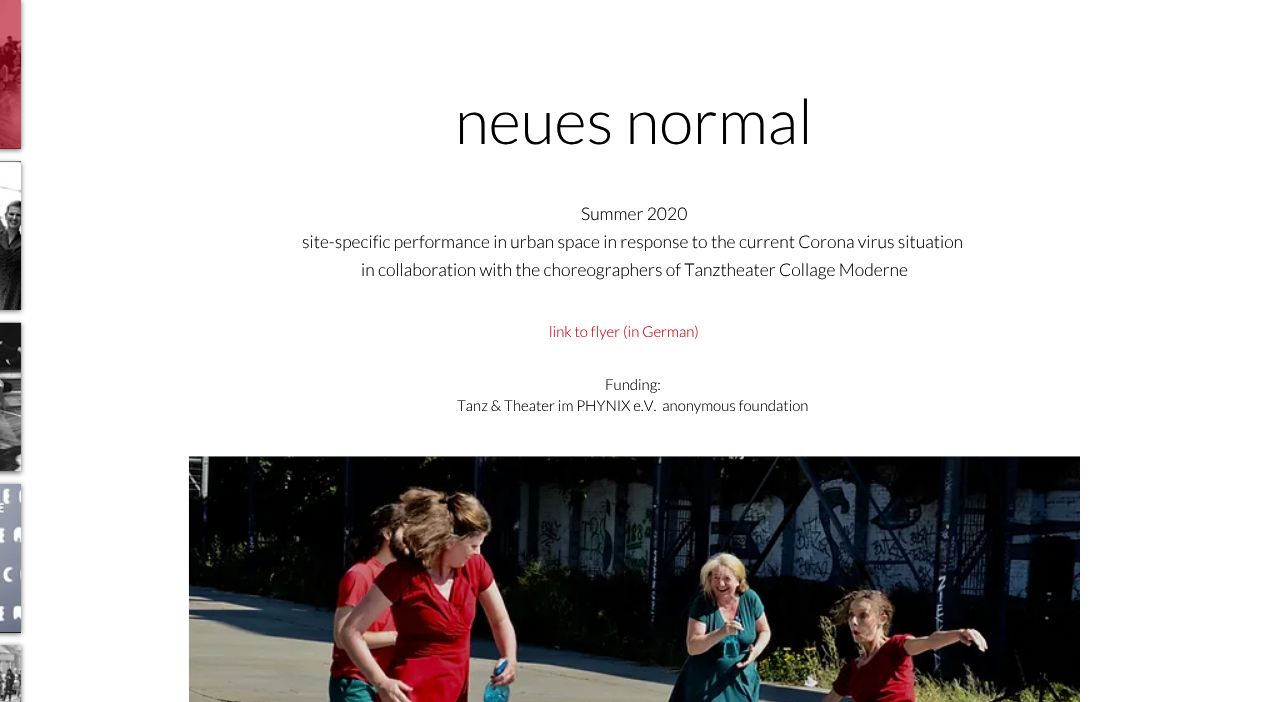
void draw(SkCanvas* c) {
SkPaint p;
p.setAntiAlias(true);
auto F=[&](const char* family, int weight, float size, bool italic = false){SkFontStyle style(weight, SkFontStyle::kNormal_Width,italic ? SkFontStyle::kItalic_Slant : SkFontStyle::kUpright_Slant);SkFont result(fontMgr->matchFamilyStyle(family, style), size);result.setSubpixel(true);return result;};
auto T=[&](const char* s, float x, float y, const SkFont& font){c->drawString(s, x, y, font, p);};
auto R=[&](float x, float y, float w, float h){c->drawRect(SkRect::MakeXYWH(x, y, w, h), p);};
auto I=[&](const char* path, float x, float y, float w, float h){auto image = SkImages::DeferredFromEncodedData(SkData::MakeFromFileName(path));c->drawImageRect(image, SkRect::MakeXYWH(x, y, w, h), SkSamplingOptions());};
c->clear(0xffffffff);
p.setColor(0x99000000);
p.setMaskFilter(SkMaskFilter::MakeBlur(kNormal_SkBlurStyle, 2.5));
c->drawRect(SkRect::MakeXYWH(-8,1,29,149),p);
p.setMaskFilter(nullptr);
p.setColor(0xff000000);
R(0,148,21,1);
I("1.png",0,0,22,149);
p.setColor(0x9cb30018);
R(0,0,21,149);
p.setColor(0x99000000);
p.setMaskFilter(SkMaskFilter::MakeBlur(kNormal_SkBlurStyle, 2.5));
c->drawRect(SkRect::MakeXYWH(-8,163,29,148),p);
p.setMaskFilter(nullptr);
p.setColor(0xff000000);
R(0,161,21,1);
I("2.png",0,161,22,149);
p.setColor(0x99000000);
p.setMaskFilter(SkMaskFilter::MakeBlur(kNormal_SkBlurStyle, 2.5));
c->drawRect(SkRect::MakeXYWH(-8,324,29,149),p);
p.setMaskFilter(nullptr);
I("3.png",0,322,22,150);
p.setMaskFilter(SkMaskFilter::MakeBlur(kNormal_SkBlurStyle, 2.5));
c->drawRect(SkRect::MakeXYWH(-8,485,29,149),p);
p.setMaskFilter(nullptr);
p.setColor(0xff000000);
R(0,632,21,1);
I("4.png",0,483,22,150);
p.setColor(0x99000000);
p.setMaskFilter(SkMaskFilter::MakeBlur(kNormal_SkBlurStyle, 2.5));
c->drawRect(SkRect::MakeXYWH(-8,646,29,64),p);
p.setMaskFilter(nullptr);
I("5.png",0,645,22,57);
auto f1 = F("Lato",300,62.5);
p.setColor(0xff000000);
T("neues normal",455,144,f1);
auto f2 = F("Lato",300,17.5);
T("Summer 2020",581,220,f2);
T("site-specific performance in urban space in response to the current Corona virus situation",302,248,f2);
T("in collaboration with the choreographers of Tanztheater Collage Moderne",361,276,f2);
auto f3 = F("Lato",300,15);
p.setColor(0xffd1000a);
T("link to flyer (in German)",549,337,f3);
p.setColor(0xff000000);
T("Funding:",605,390,f3);
T("Tanz & Theater im PHYNIX e.V.  anonymous foundation",457,411,f3);
I("6.png",188,456,892,246);
}
